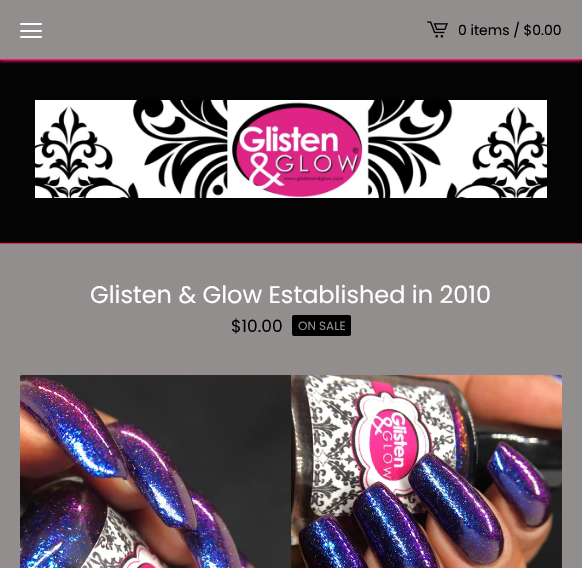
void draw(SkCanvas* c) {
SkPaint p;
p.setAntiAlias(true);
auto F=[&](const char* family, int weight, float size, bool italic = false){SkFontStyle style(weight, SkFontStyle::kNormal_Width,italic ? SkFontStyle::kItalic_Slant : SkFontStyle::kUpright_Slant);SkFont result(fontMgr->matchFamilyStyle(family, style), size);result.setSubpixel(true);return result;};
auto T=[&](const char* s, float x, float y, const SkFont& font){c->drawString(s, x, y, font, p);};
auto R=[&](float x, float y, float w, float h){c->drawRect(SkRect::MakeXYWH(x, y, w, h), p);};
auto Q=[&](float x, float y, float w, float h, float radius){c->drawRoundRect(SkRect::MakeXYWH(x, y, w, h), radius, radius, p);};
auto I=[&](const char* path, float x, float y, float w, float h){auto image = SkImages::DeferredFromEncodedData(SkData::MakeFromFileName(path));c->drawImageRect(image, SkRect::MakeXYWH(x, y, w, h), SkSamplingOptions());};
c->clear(0xff928e8e);
p.setColor(0xff040404);
R(0,60,582,183);
p.setColor(0xfff51a70);
p.setMaskFilter(SkMaskFilter::MakeBlur(kNormal_SkBlurStyle, 1.5));
c->drawRect(SkRect::MakeXYWH(0,1,582,60),p);
p.setMaskFilter(nullptr);
p.setColor(0xff928e8e);
R(0,0,582,59);
p.setColor(0xfff51a70);
R(0,59,582,1);
p.setColor(0xffffffff);
Q(20,23,22,2,1);
Q(20,30,22,2,1);
Q(20,36,22,2,1);
I("1.png",427,21,21,17);
auto f1 = F("Poppins",400,14);
p.setColor(0xff000000);
T("0 items / $0.00",458,35,f1);
p.setColor(0xfff51a70);
R(0,243,582,1);
I("2.png",35,100,512,98);
auto f2 = F("Poppins",400,24);
p.setColor(0xffffffff);
T("Glisten & Glow Established in 2010",90,303,f2);
auto f3 = F("Poppins",400,17);
p.setColor(0xff000000);
T("$10.00",231,332,f3);
Q(292,315,59,21,2);
auto f4 = F("Poppins",400,12);
p.setColor(0xff928e8e);
T("ON SALE",298,330,f4);
I("3.png",20,375,542,193);
}
